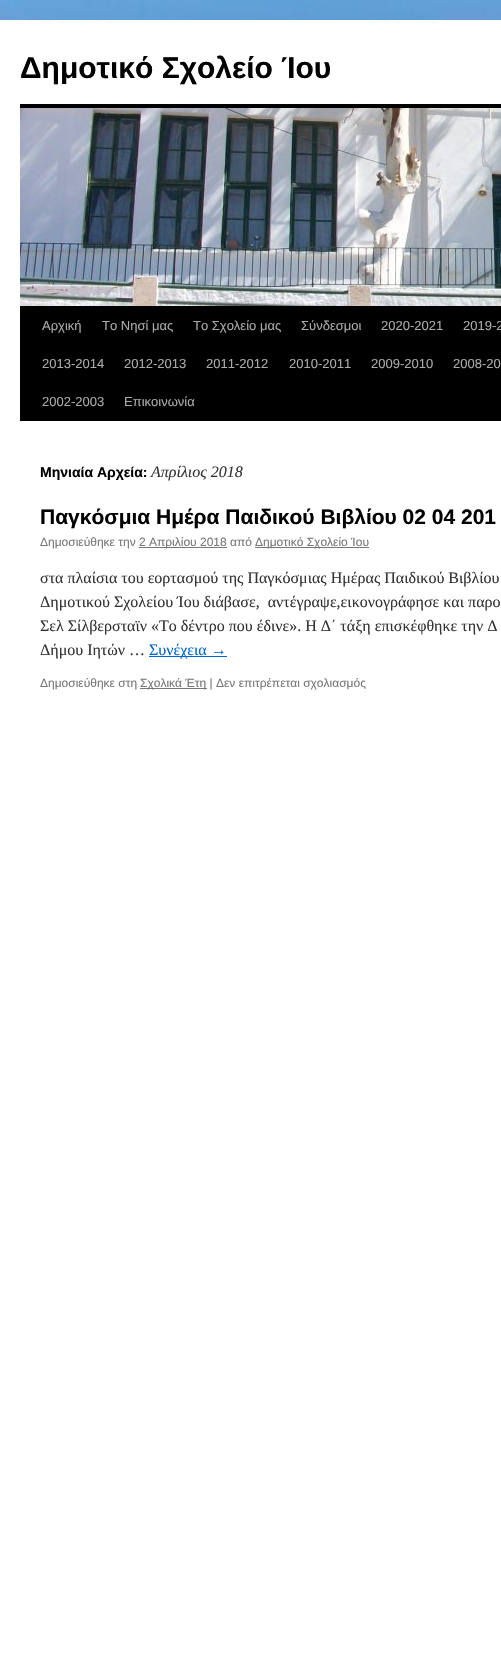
void draw(SkCanvas* c) {
SkPaint p;
p.setAntiAlias(true);
auto F=[&](const char* family, int weight, float size, bool italic = false){SkFontStyle style(weight, SkFontStyle::kNormal_Width,italic ? SkFontStyle::kItalic_Slant : SkFontStyle::kUpright_Slant);SkFont result(fontMgr->matchFamilyStyle(family, style), size);result.setSubpixel(true);return result;};
auto T=[&](const char* s, float x, float y, const SkFont& font){c->drawString(s, x, y, font, p);};
auto R=[&](float x, float y, float w, float h){c->drawRect(SkRect::MakeXYWH(x, y, w, h), p);};
auto I=[&](const char* path, float x, float y, float w, float h){auto image = SkImages::DeferredFromEncodedData(SkData::MakeFromFileName(path));c->drawImageRect(image, SkRect::MakeXYWH(x, y, w, h), SkSamplingOptions());};
c->clear(0xffffffff);
I("1.png",0,0,501,20);
auto f1 = F("Liberation Sans",700,30);
p.setColor(0xff000000);
T("Δημοτικό Σχολείο Ίου",20,78,f1);
R(20,104,481,4);
R(20,306,481,115);
I("2.png",20,108,481,198);
auto f2 = F("Liberation Sans",400,13);
p.setColor(0xffaaaaaa);
T("Αρχική",42,330,f2);
T("Το Νησί μας",102,330,f2);
T("Το Σχολείο μας",193,330,f2);
T("Σύνδεσμοι",301,330,f2);
T("2020-2021",381,330,f2);
T("2019-2",463,330,f2);
T("2013-2014",42,368,f2);
T("2012-2013",124,368,f2);
T("2011-2012",206,368,f2);
T("2010-2011",289,368,f2);
T("2009-2010",371,368,f2);
T("2008-20",453,368,f2);
T("2002-2003",42,406,f2);
T("Επικοινωνία",124,406,f2);
auto f3 = F("Liberation Sans",700,14);
p.setColor(0xff000000);
T("Μηνιαία Αρχεία:",40,477,f3);
auto f4 = F("Liberation Serif",400,16,true);
p.setColor(0xff333333);
T("Απρίλιος 2018",151,477,f4);
auto f5 = F("Liberation Sans",700,21);
p.setColor(0xff000000);
T("Παγκόσμια Ημέρα Παιδικού Βιβλίου 02 04 201",40,524,f5);
auto f6 = F("Liberation Sans",400,12);
p.setColor(0xff777777);
T("Δημοσιεύθηκε την",40,546,f6);
R(139,547,88,1);
T("2 Απριλίου 2018 από",139,546,f6);
R(255,547,114,1);
T("Δημοτικό Σχολείο Ίου",255,546,f6);
auto f7 = F("Liberation Serif",400,16);
p.setColor(0xff333333);
T("στα πλαίσια του εορτασμού της Παγκόσμιας Ημέρας Παιδικού Βιβλίου",40,583,f7);
T("Δημοτικού Σχολείου Ίου διάβασε,  αντέγραψε,εικονογράφησε και παρο",40,607,f7);
T("Σελ Σίλβερσταϊν «Το δέντρο που έδινε». Η Δ΄ τάξη επισκέφθηκε την Δ",40,631,f7);
T("Δήμου Ιητών …",40,655,f7);
p.setColor(0xff0066cc);
R(149,656,78,1);
T("Συνέχεια →",149,655,f7);
p.setColor(0xff777777);
T("Δημοσιεύθηκε στη",40,687,f6);
R(140,688,67,1);
T("Σχολικά Έτη | Δεν επιτρέπεται σχολιασμός",140,687,f6);
}
